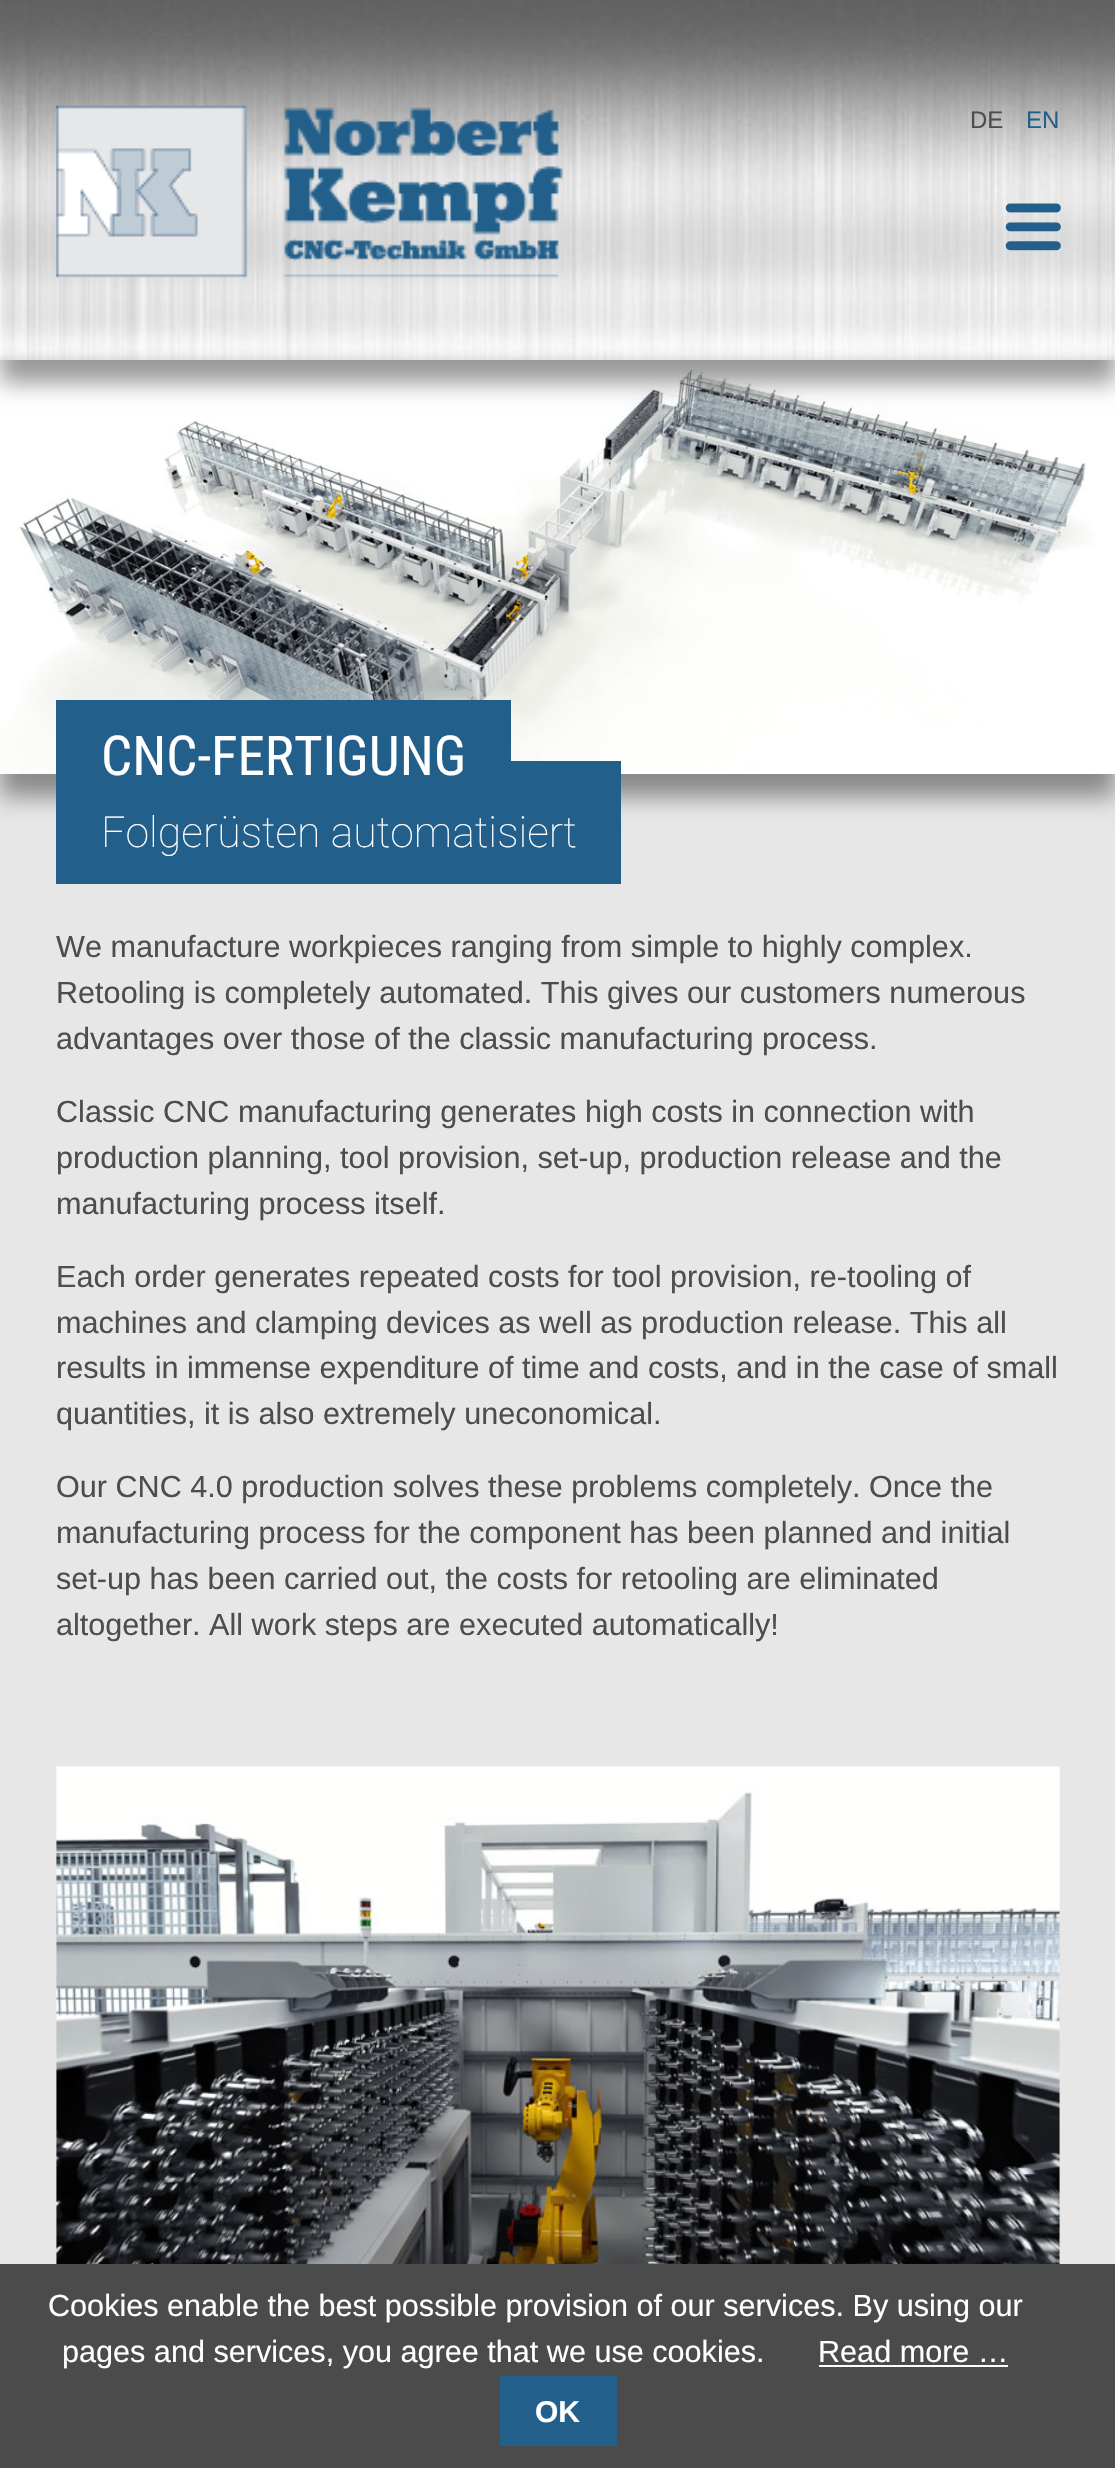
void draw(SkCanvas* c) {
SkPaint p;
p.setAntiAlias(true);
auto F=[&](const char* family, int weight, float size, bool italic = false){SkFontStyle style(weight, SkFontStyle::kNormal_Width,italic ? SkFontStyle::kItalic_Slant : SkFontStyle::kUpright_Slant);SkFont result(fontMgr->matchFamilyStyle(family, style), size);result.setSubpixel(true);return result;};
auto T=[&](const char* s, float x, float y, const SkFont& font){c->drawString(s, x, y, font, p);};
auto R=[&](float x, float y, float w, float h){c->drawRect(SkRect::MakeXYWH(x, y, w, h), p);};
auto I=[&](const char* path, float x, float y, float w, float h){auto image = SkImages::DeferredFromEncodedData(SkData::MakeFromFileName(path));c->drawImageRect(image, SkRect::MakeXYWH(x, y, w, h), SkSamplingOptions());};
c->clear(0xffe7e7e7);
p.setColor(0x66000000);
p.setMaskFilter(SkMaskFilter::MakeBlur(kNormal_SkBlurStyle, 11));
c->drawRect(SkRect::MakeXYWH(0,383,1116,414),p);
p.setMaskFilter(nullptr);
p.setColor(0xffffffff);
R(0,360,1115,414);
I("4.png",0,369,1097,405);
p.setColor(0x66000000);
p.setMaskFilter(SkMaskFilter::MakeBlur(kNormal_SkBlurStyle, 11));
c->drawRect(SkRect::MakeXYWH(0,23,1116,360),p);
p.setMaskFilter(nullptr);
I("1.png",0,0,1115,360);
I("2.png",56,105,507,174);
auto f1 = F("Liberation Sans",400,24);
p.setColor(0xff4d4d4d);
T("DE",970,128,f1);
p.setColor(0xff235f8b);
T("EN",1026,128,f1);
I("3.png",1005,203,56,48);
R(56,761,565,123);
auto f2 = F("Roboto",100,42.8);
p.setColor(0xffffffff);
T("Folgerüsten automatisiert",101,847,f2);
p.setColor(0xff235f8b);
R(56,700,455,115);
auto f3 = F("Roboto Condensed",400,55);
p.setColor(0xffffffff);
T("CNC-FERTIGUNG",101,775,f3);
auto f4 = F("Liberation Sans",400,30.6);
p.setColor(0xff4d4d4d);
T("We manufacture workpieces ranging from simple to highly complex.",56,957,f4);
T("Retooling is completely automated. This gives our customers numerous",56,1003,f4);
T("advantages over those of the classic manufacturing process.",56,1049,f4);
T("Classic CNC manufacturing generates high costs in connection with",56,1122,f4);
T("production planning, tool provision, set-up, production release and the",56,1168,f4);
T("manufacturing process itself.",56,1214,f4);
T("Each order generates repeated costs for tool provision, re-tooling of",56,1287,f4);
T("machines and clamping devices as well as production release. This all",56,1333,f4);
T("results in immense expenditure of time and costs, and in the case of small",56,1378,f4);
T("quantities, it is also extremely uneconomical.",56,1424,f4);
T("Our CNC 4.0 production solves these problems completely. Once the",56,1497,f4);
T("manufacturing process for the component has been planned and initial",56,1543,f4);
T("set-up has been carried out, the costs for retooling are eliminated",56,1589,f4);
T("altogether. All work steps are executed automatically!",56,1635,f4);
I("5.png",56,1766,1004,498);
p.setColor(0xff4b4b4b);
R(0,2264,1115,204);
p.setColor(0xffffffff);
T("Cookies enable the best possible provision of our services. By using our",48,2316,f4);
T("pages and services, you agree that we use cookies.",62,2362,f4);
T("Read more …",818,2362,f4);
R(819,2365,189,2);
p.setColor(0xff235f8b);
R(500,2376,117,70);
auto f5 = F("Liberation Sans",700,30);
p.setColor(0xffffffff);
T("OK",535,2422,f5);
}
